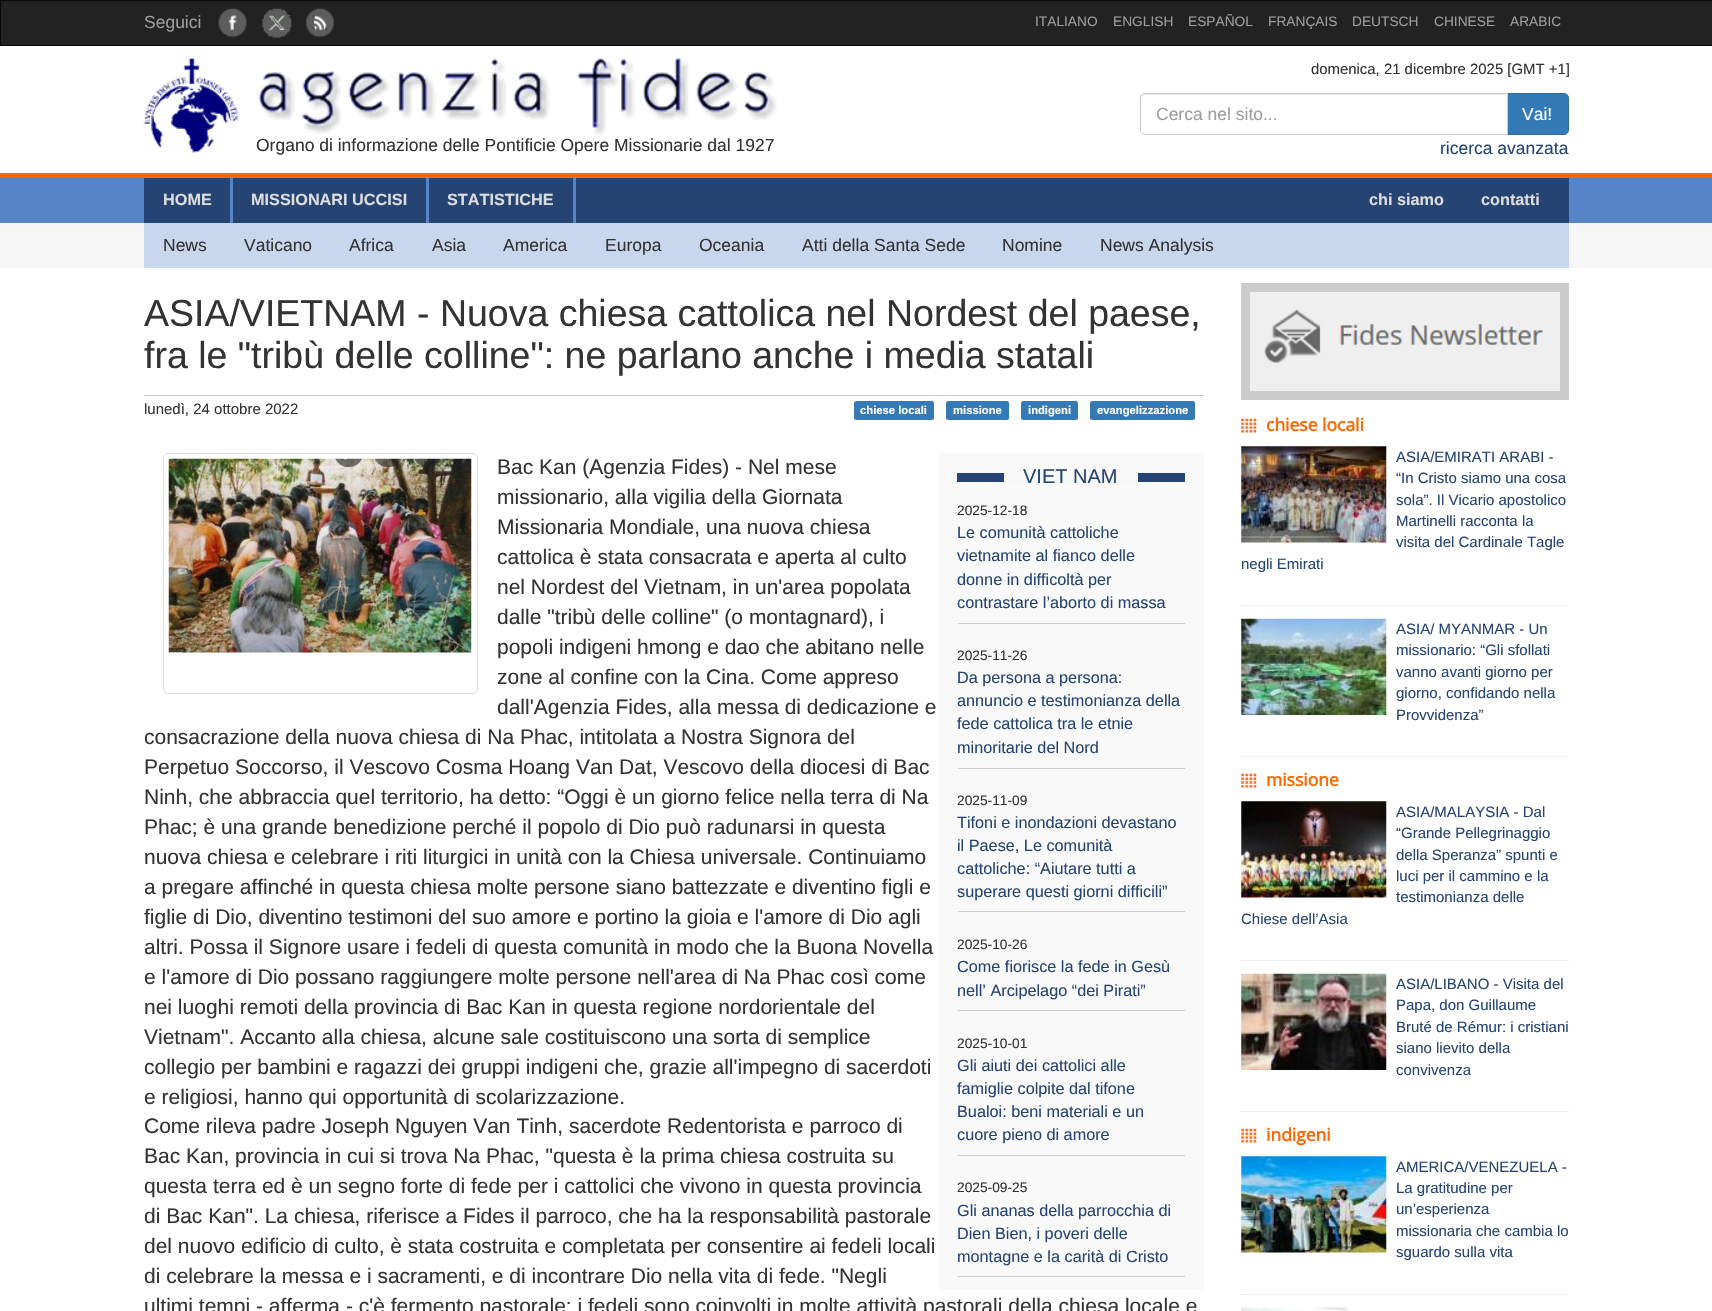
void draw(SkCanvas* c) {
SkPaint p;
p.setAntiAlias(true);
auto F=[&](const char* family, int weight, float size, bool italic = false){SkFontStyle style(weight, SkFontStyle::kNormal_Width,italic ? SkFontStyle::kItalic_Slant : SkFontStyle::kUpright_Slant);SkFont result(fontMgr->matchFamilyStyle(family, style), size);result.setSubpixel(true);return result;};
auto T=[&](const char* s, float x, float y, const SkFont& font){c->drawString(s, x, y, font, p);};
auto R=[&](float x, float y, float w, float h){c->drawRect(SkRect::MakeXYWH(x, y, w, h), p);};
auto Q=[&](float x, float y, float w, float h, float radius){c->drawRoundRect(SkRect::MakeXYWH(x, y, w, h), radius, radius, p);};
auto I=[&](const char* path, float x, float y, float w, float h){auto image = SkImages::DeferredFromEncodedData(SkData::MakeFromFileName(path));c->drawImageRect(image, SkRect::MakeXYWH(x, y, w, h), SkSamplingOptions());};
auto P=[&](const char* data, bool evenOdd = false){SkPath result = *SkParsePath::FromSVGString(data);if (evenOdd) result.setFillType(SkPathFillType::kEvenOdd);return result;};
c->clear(0xffffffff);
p.setColor(0xff222222);
c->drawRect(SkRect::MakeXYWH(.5,.5,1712,45),p);
p.setStroke(true);
p.setStrokeWidth(1);
p.setColor(0xff080808);
c->drawRect(SkRect::MakeXYWH(.5,.5,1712,45),p);
auto f1 = F("Liberation Sans",400,17.5);
p.setStroke(false);
p.setColor(0xff9d9d9d);
T("Seguici",144,28,f1);
I("1.png",218,8,29,30);
I("2.png",262,8,30,30);
I("3.png",306,8,28,30);
auto f2 = F("Liberation Sans",400,13.75);
T("ITALIANO",1035,26,f2);
T("ENGLISH",1113,26,f2);
T("ESPAÑOL",1188,26,f2);
T("FRANÇAIS",1268,26,f2);
T("DEUTSCH",1352,26,f2);
T("CHINESE",1434,26,f2);
T("ARABIC",1510,26,f2);
p.setColor(0xffff6600);
R(0,173,1712,5);
I("4.png",143,58,634,95);
p.setColor(0xff333333);
T("Organo di informazione delle Pontificie Opere Missionarie dal 1927",256,151,f1);
auto f3 = F("Liberation Sans",400,14.9);
T("domenica, 21 dicembre 2025 [GMT +1]",1311,74,f3);
p.setColor(0xff337ab7);
c->drawPath(P("M1506.5 93.5h57.5c2.5 0 4.5 2 4.5 4.5v32c0 2.5-2 4.5-4.5 4.5h-57.5z"),p);
p.setStroke(true);
p.setColor(0xff2e6da4);
c->drawPath(P("M1506.5 93.5h57.5c2.5 0 4.5 2 4.5 4.5v32c0 2.5-2 4.5-4.5 4.5h-57.5z"),p);
p.setStroke(false);
p.setColor(0xffffffff);
c->drawPath(P("M1145 93h363v42h-363c-3 0-5-2-5-5v-32c0-3 2-5 5-5z"),p);
p.setColor(0xffececec);
c->drawPath(P("M1145 95h361v-1h-361c-3 0-4 2-4 5c0-2 2-4 4-4z"),p);
p.setStroke(true);
p.setColor(0xffcccccc);
c->drawPath(P("M1145 93.5h362.5v41h-362.5c-2.5 0-4.5-2-4.5-4.5v-32c0-2.5 2-4.5 4.5-4.5z"),p);
p.setStroke(false);
p.setColor(0xff9d9d9d);
T("Cerca nel sito...",1156,120,f1);
p.setColor(0xffffffff);
T("Vai!",1522,120,f1);
p.setColor(0xff254472);
T("ricerca avanzata",1440,154,f1);
p.setColor(0xfff6f6f6);
R(0,223,1712,45);
p.setColor(0xff5684c9);
R(0,178,1712,45);
p.setColor(0xff254473);
R(144,178,1425,45);
p.setColor(0xff5684c9);
R(230,178,3,45);
auto f4 = F("Liberation Sans",700,16.25);
p.setColor(0xffdddddd);
T("HOME",163,205,f4);
p.setColor(0xff5684c9);
R(426,178,3,45);
p.setColor(0xffdddddd);
T("MISSIONARI UCCISI",251,205,f4);
p.setColor(0xff5684c9);
R(573,178,3,45);
p.setColor(0xffdddddd);
T("STATISTICHE",447,205,f4);
T("chi siamo",1369,205,f4);
T("contatti",1481,205,f4);
p.setColor(0xffc8d7ee);
R(144,223,1425,45);
p.setColor(0xff333333);
T("News",163,251,f1);
T("Vaticano",244,251,f1);
T("Africa",349,251,f1);
T("Asia",432,251,f1);
T("America",503,251,f1);
T("Europa",605,251,f1);
T("Oceania",699,251,f1);
T("Atti della Santa Sede",802,251,f1);
T("Nomine",1002,251,f1);
T("News Analysis",1100,251,f1);
p.setColor(0xffcccccc);
R(144,395,1060,1);
auto f5 = F("Liberation Sans",400,37.5);
p.setColor(0xff333333);
T("ASIA/VIETNAM - Nuova chiesa cattolica nel Nordest del paese,",144,326,f5);
T("fra le \"tribù delle colline\": ne parlano anche i media statali",144,368,f5);
auto f6 = F("Liberation Sans",400,15);
T("lunedì, 24 ottobre 2022",144,414,f6);
p.setColor(0xff337ab7);
Q(854,401,80,19,2.5);
auto f7 = F("Liberation Sans",700,11.25);
p.setColor(0xffffffff);
T("chiese locali",860,414,f7);
p.setColor(0xff337ab7);
Q(946,401,63,19,2.5);
p.setColor(0xffffffff);
T("missione",953,414,f7);
p.setColor(0xff337ab7);
Q(1021,401,57,19,2.5);
p.setColor(0xffffffff);
T("indigeni",1028,414,f7);
p.setColor(0xff337ab7);
Q(1090,401,105,19,2.5);
p.setColor(0xffffffff);
T("evangelizzazione",1097,414,f7);
p.setStroke(true);
p.setColor(0xffdddddd);
c->drawRoundRect(SkRect::MakeXYWH(163.5,453.5,314,240),4.5,4.5,p);
I("5.png",168,458,304,195);
auto f8 = F("Liberation Sans",400,21);
p.setStroke(false);
p.setColor(0xff333333);
T("Bac Kan (Agenzia Fides) - Nel mese",497,474,f8);
T("missionario, alla vigilia della Giornata",497,504,f8);
T("Missionaria Mondiale, una nuova chiesa",497,534,f8);
T("cattolica è stata consacrata e aperta al culto",497,564,f8);
T("nel Nordest del Vietnam, in un'area popolata",497,594,f8);
T("dalle \"tribù delle colline\" (o montagnard), i",497,624,f8);
T("popoli indigeni hmong e dao che abitano nelle",497,654,f8);
T("zone al confine con la Cina. Come appreso",497,684,f8);
T("dall'Agenzia Fides, alla messa di dedicazione e",497,714,f8);
T("consacrazione della nuova chiesa di Na Phac, intitolata a Nostra Signora del",144,744,f8);
T("Perpetuo Soccorso, il Vescovo Cosma Hoang Van Dat, Vescovo della diocesi di Bac",144,774,f8);
T("Ninh, che abbraccia quel territorio, ha detto: “Oggi è un giorno felice nella terra di Na",144,804,f8);
T("Phac; è una grande benedizione perché il popolo di Dio può radunarsi in questa",144,834,f8);
T("nuova chiesa e celebrare i riti liturgici in unità con la Chiesa universale. Continuiamo",144,864,f8);
T("a pregare affinché in questa chiesa molte persone siano battezzate e diventino figli e",144,894,f8);
T("figlie di Dio, diventino testimoni del suo amore e portino la gioia e l'amore di Dio agli",144,924,f8);
T("altri. Possa il Signore usare i fedeli di questa comunità in modo che la Buona Novella",144,954,f8);
T("e l'amore di Dio possano raggiungere molte persone nell'area di Na Phac così come",144,984,f8);
T("nei luoghi remoti della provincia di Bac Kan in questa regione nordorientale del",144,1014,f8);
T("Vietnam\". Accanto alla chiesa, alcune sale costituiscono una sorta di semplice",144,1044,f8);
T("collegio per bambini e ragazzi dei gruppi indigeni che, grazie all'impegno di sacerdoti",144,1074,f8);
T("e religiosi, hanno qui opportunità di scolarizzazione.",144,1104,f8);
T("Come rileva padre Joseph Nguyen Van Tinh, sacerdote Redentorista e parroco di",144,1133,f8);
T("Bac Kan, provincia in cui si trova Na Phac, \"questa è la prima chiesa costruita su",144,1163,f8);
T("questa terra ed è un segno forte di fede per i cattolici che vivono in questa provincia",144,1193,f8);
T("di Bac Kan\". La chiesa, riferisce a Fides il parroco, che ha la responsabilità pastorale",144,1223,f8);
T("del nuovo edificio di culto, è stata costruita e completata per consentire ai fedeli locali",144,1253,f8);
T("di celebrare la messa e i sacramenti, e di incontrare Dio nella vita di fede. \"Negli",144,1283,f8);
T("ultimi tempi - afferma - c'è fermento pastorale: i fedeli sono coinvolti in molte attività pastorali della chiesa locale e",144,1313,f8);
p.setColor(0xfff9f9f9);
R(939,453,265,837);
p.setColor(0xff254473);
R(957,473,228,9);
p.setColor(0xfff7f7f7);
R(1004,473,134,9);
auto f9 = F("Liberation Sans",400,20);
p.setColor(0xff254472);
T("VIET NAM",1023,483,f9);
p.setColor(0xffcccccc);
R(958,623,227,1);
p.setColor(0xff333333);
T("2025-12-18",957,515,f2);
auto f10 = F("Liberation Sans",400,16.25);
p.setColor(0xff254472);
T("Le comunità cattoliche",957,538,f10);
T("vietnamite al fianco delle",957,561,f10);
T("donne in difficoltà per",957,585,f10);
T("contrastare l’aborto di massa",957,608,f10);
p.setColor(0xffcccccc);
R(958,768,227,1);
p.setColor(0xff333333);
T("2025-11-26",957,660,f2);
p.setColor(0xff254472);
T("Da persona a persona:",957,683,f10);
T("annuncio e testimonianza della",957,706,f10);
T("fede cattolica tra le etnie",957,729,f10);
T("minoritarie del Nord",957,753,f10);
p.setColor(0xffcccccc);
R(958,911,227,1);
p.setColor(0xff333333);
T("2025-11-09",957,805,f2);
p.setColor(0xff254472);
T("Tifoni e inondazioni devastano",957,828,f10);
T("il Paese, Le comunità",957,851,f10);
T("cattoliche: “Aiutare tutti a",957,874,f10);
T("superare questi giorni difficili”",957,897,f10);
p.setColor(0xffcccccc);
R(958,1010,227,1);
p.setColor(0xff333333);
T("2025-10-26",957,949,f2);
p.setColor(0xff254472);
T("Come fiorisce la fede in Gesù",957,972,f10);
T("nell’ Arcipelago “dei Pirati”",957,996,f10);
p.setColor(0xffcccccc);
R(958,1155,227,1);
p.setColor(0xff333333);
T("2025-10-01",957,1048,f2);
p.setColor(0xff254472);
T("Gli aiuti dei cattolici alle",957,1071,f10);
T("famiglie colpite dal tifone",957,1094,f10);
T("Bualoi: beni materiali e un",957,1117,f10);
T("cuore pieno di amore",957,1140,f10);
p.setColor(0xffcccccc);
R(958,1276,227,1);
p.setColor(0xff333333);
T("2025-09-25",957,1192,f2);
p.setColor(0xff254472);
T("Gli ananas della parrocchia di",957,1216,f10);
T("Dien Bien, i poveri delle",957,1239,f10);
T("montagne e la carità di Cristo",957,1262,f10);
p.setColor(0xffefefef);
c->drawRect(SkRect::MakeXYWH(1245.5,287.5,319,108),p);
p.setStroke(true);
p.setStrokeWidth(9);
p.setColor(0xffcccccc);
c->drawRect(SkRect::MakeXYWH(1245.5,287.5,319,108),p);
I("6.png",1264,309,279,54);
I("7.png",1241,418,16,15);
auto f11 = F("Open Sans",700,17.5);
p.setStroke(false);
p.setColor(0xffff6600);
T("chiese locali",1266,431,f11);
I("8.png",1241,446,146,97);
p.setColor(0xff254472);
T("ASIA/EMIRATI ARABI -",1396,462,f6);
T("“In Cristo siamo una cosa",1396,483,f6);
T("sola”. Il Vicario apostolico",1396,505,f6);
T("Martinelli racconta la",1396,526,f6);
T("visita del Cardinale Tagle",1396,547,f6);
T("negli Emirati",1241,569,f6);
p.setColor(0xffeeeeee);
R(1241,605,328,1);
I("9.png",1241,618,146,97);
p.setColor(0xff254472);
T("ASIA/ MYANMAR - Un",1396,634,f6);
T("missionario: “Gli sfollati",1396,655,f6);
T("vanno avanti giorno per",1396,677,f6);
T("giorno, confidando nella",1396,698,f6);
T("Provvidenza”",1396,720,f6);
p.setColor(0xffeeeeee);
R(1241,756,328,1);
I("7.png",1241,773,16,15);
p.setColor(0xffff6600);
T("missione",1266,786,f11);
I("10.png",1241,801,146,97);
p.setColor(0xff254472);
T("ASIA/MALAYSIA - Dal",1396,817,f6);
T("“Grande Pellegrinaggio",1396,838,f6);
T("della Speranza” spunti e",1396,860,f6);
T("luci per il cammino e la",1396,881,f6);
T("testimonianza delle",1396,902,f6);
T("Chiese dell’Asia",1241,924,f6);
p.setColor(0xffeeeeee);
R(1241,960,328,1);
I("11.png",1241,973,146,97);
p.setColor(0xff254472);
T("ASIA/LIBANO - Visita del",1396,989,f6);
T("Papa, don Guillaume",1396,1010,f6);
T("Bruté de Rémur: i cristiani",1396,1032,f6);
T("siano lievito della",1396,1053,f6);
T("convivenza",1396,1075,f6);
p.setColor(0xffeeeeee);
R(1241,1111,328,1);
I("7.png",1241,1128,16,15);
p.setColor(0xffff6600);
T("indigeni",1266,1141,f11);
I("12.png",1241,1156,146,97);
p.setColor(0xff254472);
T("AMERICA/VENEZUELA -",1396,1172,f6);
T("La gratitudine per",1396,1193,f6);
T("un’esperienza",1396,1214,f6);
T("missionaria che cambia lo",1396,1236,f6);
T("sguardo sulla vita",1396,1257,f6);
p.setColor(0xffeeeeee);
R(1241,1294,328,1);
I("13.png",1241,1307,109,4);
}
